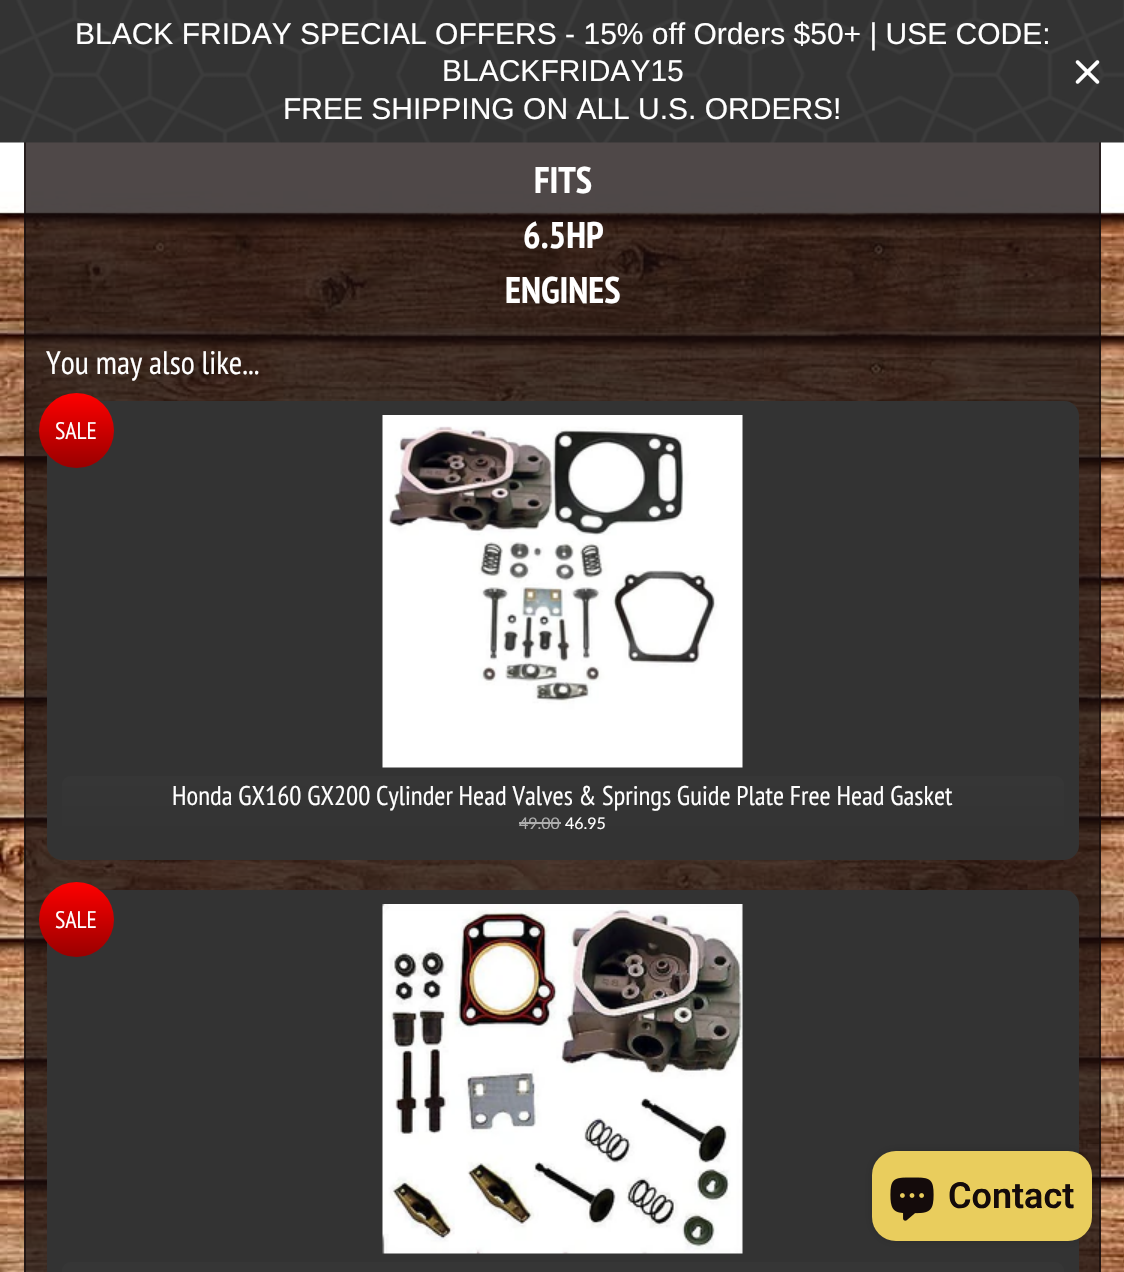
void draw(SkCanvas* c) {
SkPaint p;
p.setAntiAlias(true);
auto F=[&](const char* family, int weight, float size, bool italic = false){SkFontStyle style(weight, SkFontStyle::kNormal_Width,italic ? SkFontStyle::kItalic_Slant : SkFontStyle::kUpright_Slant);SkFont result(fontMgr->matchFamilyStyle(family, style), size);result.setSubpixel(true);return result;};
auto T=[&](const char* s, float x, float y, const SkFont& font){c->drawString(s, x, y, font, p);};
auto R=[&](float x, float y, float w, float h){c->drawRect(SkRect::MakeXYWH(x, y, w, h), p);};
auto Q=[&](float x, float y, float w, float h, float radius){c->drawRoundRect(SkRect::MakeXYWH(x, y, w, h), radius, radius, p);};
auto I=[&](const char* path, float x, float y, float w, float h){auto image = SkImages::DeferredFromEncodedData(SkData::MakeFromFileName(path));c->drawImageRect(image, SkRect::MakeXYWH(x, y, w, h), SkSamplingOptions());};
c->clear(0xffffffff);
I("1.png",0,142,1124,1130);
p.setStroke(true);
p.setStrokeWidth(2);
p.setColor(0xb3140b0b);
c->drawRect(SkRect::MakeXYWH(25,-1,1075,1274),p);
I("2.png",0,0,1124,143);
auto f1 = F("Liberation Sans",400,30);
p.setStroke(false);
p.setColor(0xffffffff);
T("BLACK FRIDAY SPECIAL OFFERS - 15% off Orders $50+ | USE CODE:",75,44,f1);
T("BLACKFRIDAY15",442,81,f1);
T("FREE SHIPPING ON ALL U.S. ORDERS!",283,119,f1);
I("3.png",1075,60,25,24);
auto f2 = F("PT Sans Narrow",700,37);
T("FITS",534,193,f2);
T("6.5HP",523,248,f2);
T("ENGINES",505,303,f2);
auto f3 = F("PT Sans Narrow",400,32.5);
T("You may also like...",46,374,f3);
p.setColor(0xff333333);
Q(47,401,1032,459,15);
{
const SkColor colors[] = {0xffff0000,0xff990000};
const float stops[] = {0,1};
const SkPoint ends[] = {{77,393}, {77,468}};
p.setShader(SkGradientShader::MakeLinear(ends, colors, stops, 2, SkTileMode::kClamp));
p.setAlpha(255);
}
c->drawCircle(76.5,430.5,37.5,p);
auto f4 = F("PT Sans Narrow",400,24);
p.setShader(nullptr);
p.setColor(0xffffffff);
T("SALE",55,439,f4);
I("4.png",382,415,361,353);
{
const SkColor colors[] = {0xff363636,0xff333333};
const float stops[] = {0,1};
const SkPoint ends[] = {{563,776}, {563,836}};
p.setShader(SkGradientShader::MakeLinear(ends, colors, stops, 2, SkTileMode::kClamp));
p.setAlpha(255);
}
Q(62,776,1002,60,9);
auto f5 = F("PT Sans Narrow",400,27);
p.setShader(nullptr);
p.setColor(0xffffffff);
T("Honda GX160 GX200 Cylinder Head Valves & Springs Guide Plate Free Head Gasket",172,805,f5);
auto f6 = F("Lato",400,16);
p.setColor(0xffaeaeae);
T("49.00",519,829,f6);
R(519,822,42,2);
p.setColor(0xffffffff);
T("46.95",565,829,f6);
p.setColor(0xff333333);
Q(47,890,1032,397,15);
{
const SkColor colors[] = {0xffff0000,0xff990000};
const float stops[] = {0,1};
const SkPoint ends[] = {{77,882}, {77,957}};
p.setShader(SkGradientShader::MakeLinear(ends, colors, stops, 2, SkTileMode::kClamp));
p.setAlpha(255);
}
c->drawCircle(76.5,919.5,37.5,p);
p.setShader(nullptr);
p.setColor(0xffffffff);
T("SALE",55,928,f4);
I("5.png",382,904,361,350);
{
const SkColor colors[] = {0xff363636,0xff333333};
const float stops[] = {0,1};
const SkPoint ends[] = {{563,1262}, {563,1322}};
p.setShader(SkGradientShader::MakeLinear(ends, colors, stops, 2, SkTileMode::kClamp));
p.setAlpha(255);
}
Q(62,1262,1002,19,9);
p.setShader(nullptr);
p.setColor(0x26000000);
p.setMaskFilter(SkMaskFilter::MakeBlur(kNormal_SkBlurStyle, 4));
c->drawRoundRect(SkRect::MakeXYWH(872,1151,220,90),24,24,p);
p.setMaskFilter(nullptr);
p.setColor(0xffe9cd5d);
Q(872,1151,220,90,24);
I("6.png",890,1177,44,44);
auto f7 = F("Roboto",600,36);
p.setColor(0xff140b0b);
T("Contact",948,1208,f7);
}
